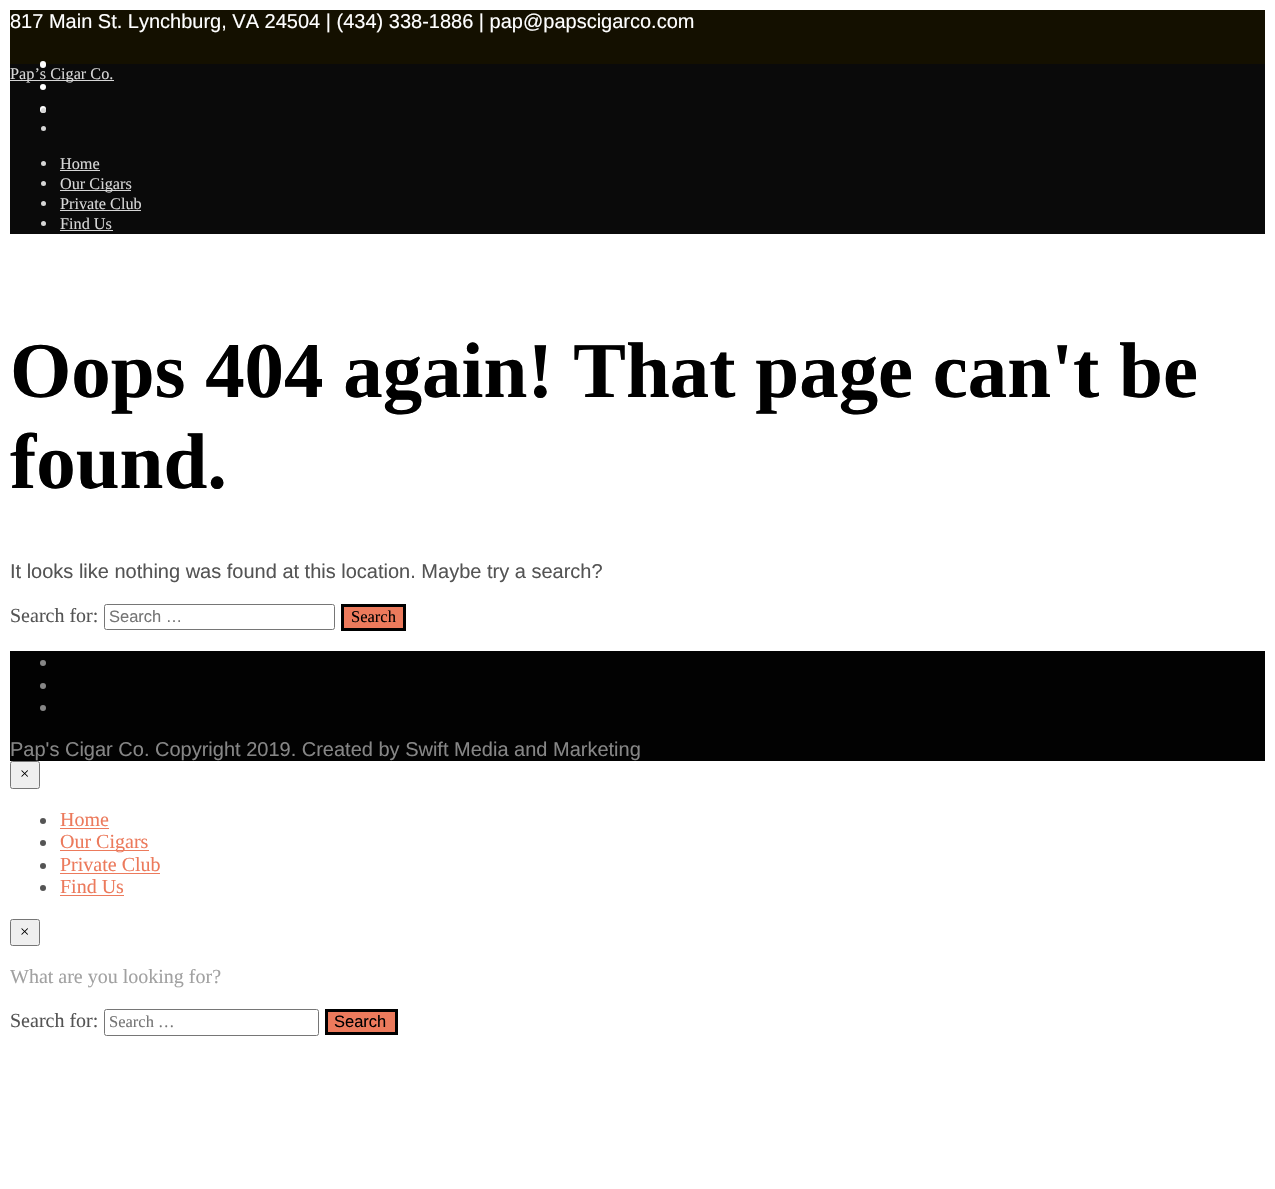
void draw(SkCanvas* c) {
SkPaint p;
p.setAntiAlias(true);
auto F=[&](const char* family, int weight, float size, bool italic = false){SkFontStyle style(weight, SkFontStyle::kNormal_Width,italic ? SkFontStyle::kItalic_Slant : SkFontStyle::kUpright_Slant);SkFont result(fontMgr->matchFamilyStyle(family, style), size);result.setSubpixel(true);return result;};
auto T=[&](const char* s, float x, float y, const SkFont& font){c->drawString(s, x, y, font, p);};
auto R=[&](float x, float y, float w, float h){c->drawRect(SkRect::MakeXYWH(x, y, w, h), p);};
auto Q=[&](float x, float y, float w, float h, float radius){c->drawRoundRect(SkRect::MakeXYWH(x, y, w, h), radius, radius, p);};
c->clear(0xffffffff);
p.setColor(0xff141000);
R(10,10,1255,54);
auto f1 = F("Liberation Sans",400,20);
p.setColor(0xffffffff);
T("817 Main St. Lynchburg, VA 24504 | (434) 338-1886 | pap@papscigarco.com",10,28,f1);
p.setColor(0xff0a0a0a);
R(10,64,1255,170);
p.setColor(0xffffffff);
Q(40,61,6,7,3);
c->drawCircle(43,87,3,p);
Q(40,106,6,7,3);
p.setColor(0xffd6d6d6);
R(10,80,104,1);
auto f2 = F("Liberation Serif",400,16.25);
T("Pap’s Cigar Co.",10,79,f2);
c->drawCircle(43.5,110.5,2.5,p);
c->drawCircle(43.5,128.5,2.5,p);
c->drawCircle(43.5,163.5,2.5,p);
T("Home",60,169,f2);
R(60,170,40,1);
c->drawCircle(43.5,183.5,2.5,p);
R(60,190,71,1);
T("Our Cigars",60,189,f2);
c->drawCircle(43.5,203.5,2.5,p);
T("Private Club",60,209,f2);
R(60,210,81,1);
c->drawCircle(43.5,223.5,2.5,p);
T("Find Us",60,229,f2);
R(60,230,53,1);
auto f3 = F("Liberation Serif",700,78.9);
p.setColor(0xff000000);
T("Oops 404 again! That page can't be",10,397,f3);
T("found.",10,488,f3);
p.setColor(0xff545454);
T("It looks like nothing was found at this location. Maybe try a search?",10,578,f1);
auto f4 = F("Liberation Serif",400,20);
T("Search for:",10,622,f4);
p.setStroke(true);
p.setStrokeWidth(1);
p.setColor(0xff767676);
c->drawRoundRect(SkRect::MakeXYWH(104.5,604.5,230,25),2,2,p);
auto f5 = F("Liberation Sans",400,16.5);
p.setStroke(false);
p.setColor(0xff757575);
T("Search …",109,622,f5);
p.setColor(0xffec7a5c);
c->drawRect(SkRect::MakeXYWH(342.5,605.5,62,24),p);
p.setStroke(true);
p.setStrokeWidth(3);
p.setColor(0xff000000);
c->drawRect(SkRect::MakeXYWH(342.5,605.5,62,24),p);
auto f6 = F("Liberation Serif",400,16.5);
p.setStroke(false);
T("Search",351,622,f6);
p.setColor(0xff020202);
R(10,651,1255,110);
p.setColor(0xff868686);
c->drawCircle(43,663,3,p);
c->drawCircle(43,686,3,p);
c->drawCircle(43,708,3,p);
T("Pap's Cigar Co. Copyright 2019. Created by Swift Media and Marketing",10,756,f1);
p.setColor(0xffefefef);
c->drawRoundRect(SkRect::MakeXYWH(10.5,761.5,29,27),2,2,p);
p.setStroke(true);
p.setStrokeWidth(1);
p.setColor(0xff767676);
c->drawRoundRect(SkRect::MakeXYWH(10.5,761.5,29,27),2,2,p);
p.setStroke(false);
p.setColor(0xff000000);
T("×",20,779,f6);
p.setColor(0xff545454);
c->drawCircle(43,821,3,p);
p.setColor(0xffec7a5c);
T("Home",60,826,f4);
R(60,828,49,1);
p.setColor(0xff545454);
c->drawCircle(43,843,3,p);
p.setColor(0xffec7a5c);
R(60,850,89,1);
T("Our Cigars",60,848,f4);
p.setColor(0xff545454);
c->drawCircle(43,866,3,p);
p.setColor(0xffec7a5c);
T("Private Club",60,871,f4);
R(60,873,100,1);
p.setColor(0xff545454);
c->drawCircle(43,888,3,p);
p.setColor(0xffec7a5c);
T("Find Us",60,893,f4);
R(60,895,64,1);
p.setColor(0xffefefef);
c->drawRoundRect(SkRect::MakeXYWH(10.5,919.5,29,26),2,2,p);
p.setStroke(true);
p.setColor(0xff767676);
c->drawRoundRect(SkRect::MakeXYWH(10.5,919.5,29,26),2,2,p);
p.setStroke(false);
p.setColor(0xff000000);
T("×",20,937,f6);
p.setColor(0xffa1a1a1);
T("What are you looking for?",10,983,f4);
p.setColor(0xff545454);
T("Search for:",10,1027,f4);
p.setStroke(true);
p.setColor(0xff767676);
c->drawRoundRect(SkRect::MakeXYWH(104.5,1009.5,214,26),2,2,p);
p.setStroke(false);
p.setColor(0xff757575);
T("Search …",109,1027,f6);
p.setColor(0xffec7a5c);
c->drawRect(SkRect::MakeXYWH(326.5,1010.5,70,23),p);
p.setStroke(true);
p.setStrokeWidth(3);
p.setColor(0xff000000);
c->drawRect(SkRect::MakeXYWH(326.5,1010.5,70,23),p);
p.setStroke(false);
T("Search",334,1027,f5);
}
